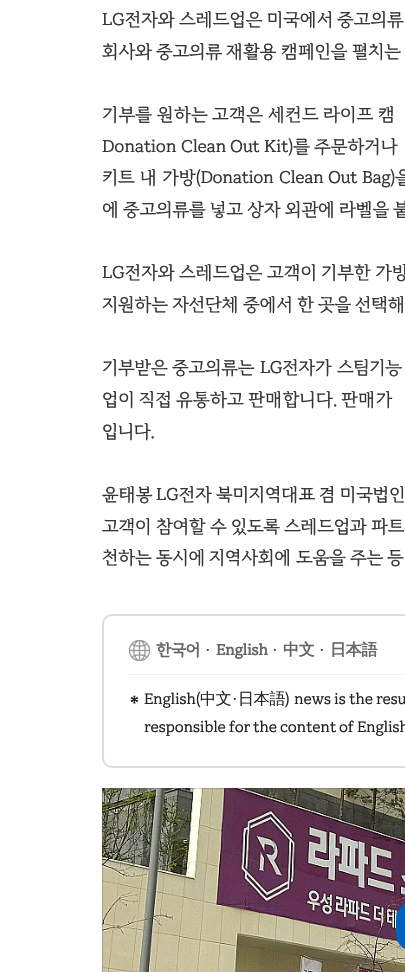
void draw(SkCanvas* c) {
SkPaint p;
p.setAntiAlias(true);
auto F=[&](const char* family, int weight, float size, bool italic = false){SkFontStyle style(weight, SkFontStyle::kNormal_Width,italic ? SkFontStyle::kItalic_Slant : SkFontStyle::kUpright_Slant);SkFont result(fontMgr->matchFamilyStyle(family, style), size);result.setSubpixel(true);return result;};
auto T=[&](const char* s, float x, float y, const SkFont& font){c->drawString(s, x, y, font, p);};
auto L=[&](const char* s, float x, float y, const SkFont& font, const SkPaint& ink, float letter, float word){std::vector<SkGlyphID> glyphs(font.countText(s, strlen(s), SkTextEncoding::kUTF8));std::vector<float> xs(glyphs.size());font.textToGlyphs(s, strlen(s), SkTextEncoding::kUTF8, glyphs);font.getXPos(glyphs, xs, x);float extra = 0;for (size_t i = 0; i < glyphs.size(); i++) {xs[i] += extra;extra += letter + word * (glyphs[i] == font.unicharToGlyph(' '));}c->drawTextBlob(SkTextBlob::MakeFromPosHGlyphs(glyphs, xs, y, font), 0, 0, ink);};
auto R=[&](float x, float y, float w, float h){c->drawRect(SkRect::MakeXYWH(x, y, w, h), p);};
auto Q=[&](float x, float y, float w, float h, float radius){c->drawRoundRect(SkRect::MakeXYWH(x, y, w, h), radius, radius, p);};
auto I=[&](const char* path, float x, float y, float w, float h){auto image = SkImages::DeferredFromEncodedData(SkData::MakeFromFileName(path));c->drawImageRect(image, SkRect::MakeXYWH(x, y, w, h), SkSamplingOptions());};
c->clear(0xffffffff);
auto f1 = F("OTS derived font",400,18);
p.setColor(0xff363636);
L("LG전자와",102,25,f1,p,-.25,0);
L("스레드업은",179,25,f1,p,-.25,0);
L("미국에서",267,25,f1,p,-.25,0);
L("중고의류",337,25,f1,p,-.25,0);
L("회사와",102,57,f1,p,-.4,0);
L("중고의류",156,57,f1,p,-.4,0);
L("재활용",226,57,f1,p,-.4,0);
L("캠페인을",281,57,f1,p,-.4,0);
L("펼치는",352,57,f1,p,-.4,0);
T("기부를",102,120,f1);
T("원하는",157,120,f1);
T("고객은",212,120,f1);
T("세컨드",268,120,f1);
T("라이프",323,120,f1);
T("캠",378,120,f1);
L("Donation",102,152,f1,p,-.25,0);
L("Clean",181,152,f1,p,-.25,0);
L("Out",230,152,f1,p,-.25,0);
L("Kit)를",264,152,f1,p,-.25,0);
L("주문하거나",314,152,f1,p,-.25,0);
L("키트",102,183,f1,p,-.4,0);
L("내",140,183,f1,p,-.4,0);
L("가방(Donation",162,183,f1,p,-.4,0);
L("Clean",279,183,f1,p,-.4,0);
L("Out",328,183,f1,p,-.4,0);
L("Bag)을",362,183,f1,p,-.4,0);
L("에",102,215,f1,p,-.4,0);
L("중고의류를",123,215,f1,p,-.4,0);
L("넣고",210,215,f1,p,-.4,0);
L("상자",247,215,f1,p,-.4,0);
L("외관에",285,215,f1,p,-.4,0);
L("라벨을",339,215,f1,p,-.4,0);
L("붙",393,215,f1,p,-.4,0);
L("LG전자와",102,278,f1,p,-.25,0);
L("스레드업은",179,278,f1,p,-.25,0);
L("고객이",267,278,f1,p,-.25,0);
L("기부한",321,278,f1,p,-.25,0);
L("가방",375,278,f1,p,-.25,0);
L("지원하는",102,310,f1,p,-.4,0);
L("자선단체",172,310,f1,p,-.4,0);
L("중에서",243,310,f1,p,-.4,0);
L("한",297,310,f1,p,-.4,0);
L("곳을",318,310,f1,p,-.4,0);
L("선택해",355,310,f1,p,-.4,0);
L("기부받은",102,373,f1,p,-.5,0);
L("중고의류는",172,373,f1,p,-.5,0);
L("LG전자가",260,373,f1,p,-.5,0);
L("스팀기능",337,373,f1,p,-.5,0);
T("업이",102,405,f1);
T("직접",139,405,f1);
T("유통하고",176,405,f1);
T("판매합니다.",248,405,f1);
T("판매가",341,405,f1);
L("입니다.",102,437,f1,p,-.4,0);
L("윤태봉",102,500,f1,p,-.25,0);
L("LG전자",156,500,f1,p,-.25,0);
L("북미지역대표",216,500,f1,p,-.25,0);
L("겸",319,500,f1,p,-.25,0);
L("미국법인",340,500,f1,p,-.25,0);
L("고객이",102,532,f1,p,-.5,0);
L("참여할",156,532,f1,p,-.5,0);
L("수",210,532,f1,p,-.5,0);
L("있도록",231,532,f1,p,-.5,0);
L("스레드업과",284,532,f1,p,-.5,0);
L("파트",371,532,f1,p,-.5,0);
L("천하는",102,563,f1,p,-.4,0);
L("동시에",156,563,f1,p,-.4,0);
L("지역사회에",209,563,f1,p,-.4,0);
L("도움을",296,563,f1,p,-.4,0);
L("주는",350,563,f1,p,-.4,0);
L("등",387,563,f1,p,-.4,0);
p.setStroke(true);
p.setStrokeWidth(2);
p.setColor(0xffdddddd);
c->drawRoundRect(SkRect::MakeXYWH(103,615,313,152),9,9,p);
I("1.png",129,640,21,21);
auto f2 = F("OTS derived font",700,16);
p.setStroke(false);
p.setColor(0xff666666);
L("한국어",156,655,f2,p,-.25,0);
auto f3 = F("OTS derived font",400,16);
p.setColor(0xff222222);
T("·",204,655,f3);
p.setColor(0xff666666);
L("English",216,655,f2,p,-.25,0);
p.setColor(0xff222222);
T("·",271,655,f3);
auto f4 = F("WenQuanYi Zen Hei",700,16);
p.setColor(0xff666666);
L("中文",283,655,f4,p,-.25,0);
p.setColor(0xff222222);
T("·",318,655,f3);
p.setColor(0xff666666);
L("日本語",330,655,f4,p,-.25,0);
p.setColor(0xffeeeeee);
R(129,674,276,1);
auto f5 = F("OTS derived font",400,25);
p.setColor(0xff222222);
L("*",129,714,f5,p,-.25,0);
L("English(",144,704,f3,p,-.25,0);
auto f6 = F("WenQuanYi Zen Hei",500,16);
L("中文",200,704,f6,p,-.25,0);
L("·",231,704,f3,p,-.25,0);
L("日本語",238,704,f6,p,-.25,0);
L(")",285,704,f3,p,-.25,0);
L("news",294,704,f3,p,-.25,0);
L("is",334,704,f3,p,-.25,0);
L("the",349,704,f3,p,-.25,0);
L("resu",376,704,f3,p,-.25,0);
L("responsible",144,732,f3,p,-.25,0);
L("for",229,732,f3,p,-.25,0);
L("the",253,732,f3,p,-.25,0);
L("content",280,732,f3,p,-.25,0);
L("of",339,732,f3,p,-.25,0);
L("English",357,732,f3,p,-.25,0);
I("2.png",102,788,303,184);
p.setStroke(true);
p.setStrokeWidth(1);
p.setColor(0x26000000);
c->drawRect(SkRect::MakeXYWH(102.5,788.5,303,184),p);
p.setStroke(false);
p.setColor(0xff0062ba);
Q(396,902,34,49,24.5);
}
